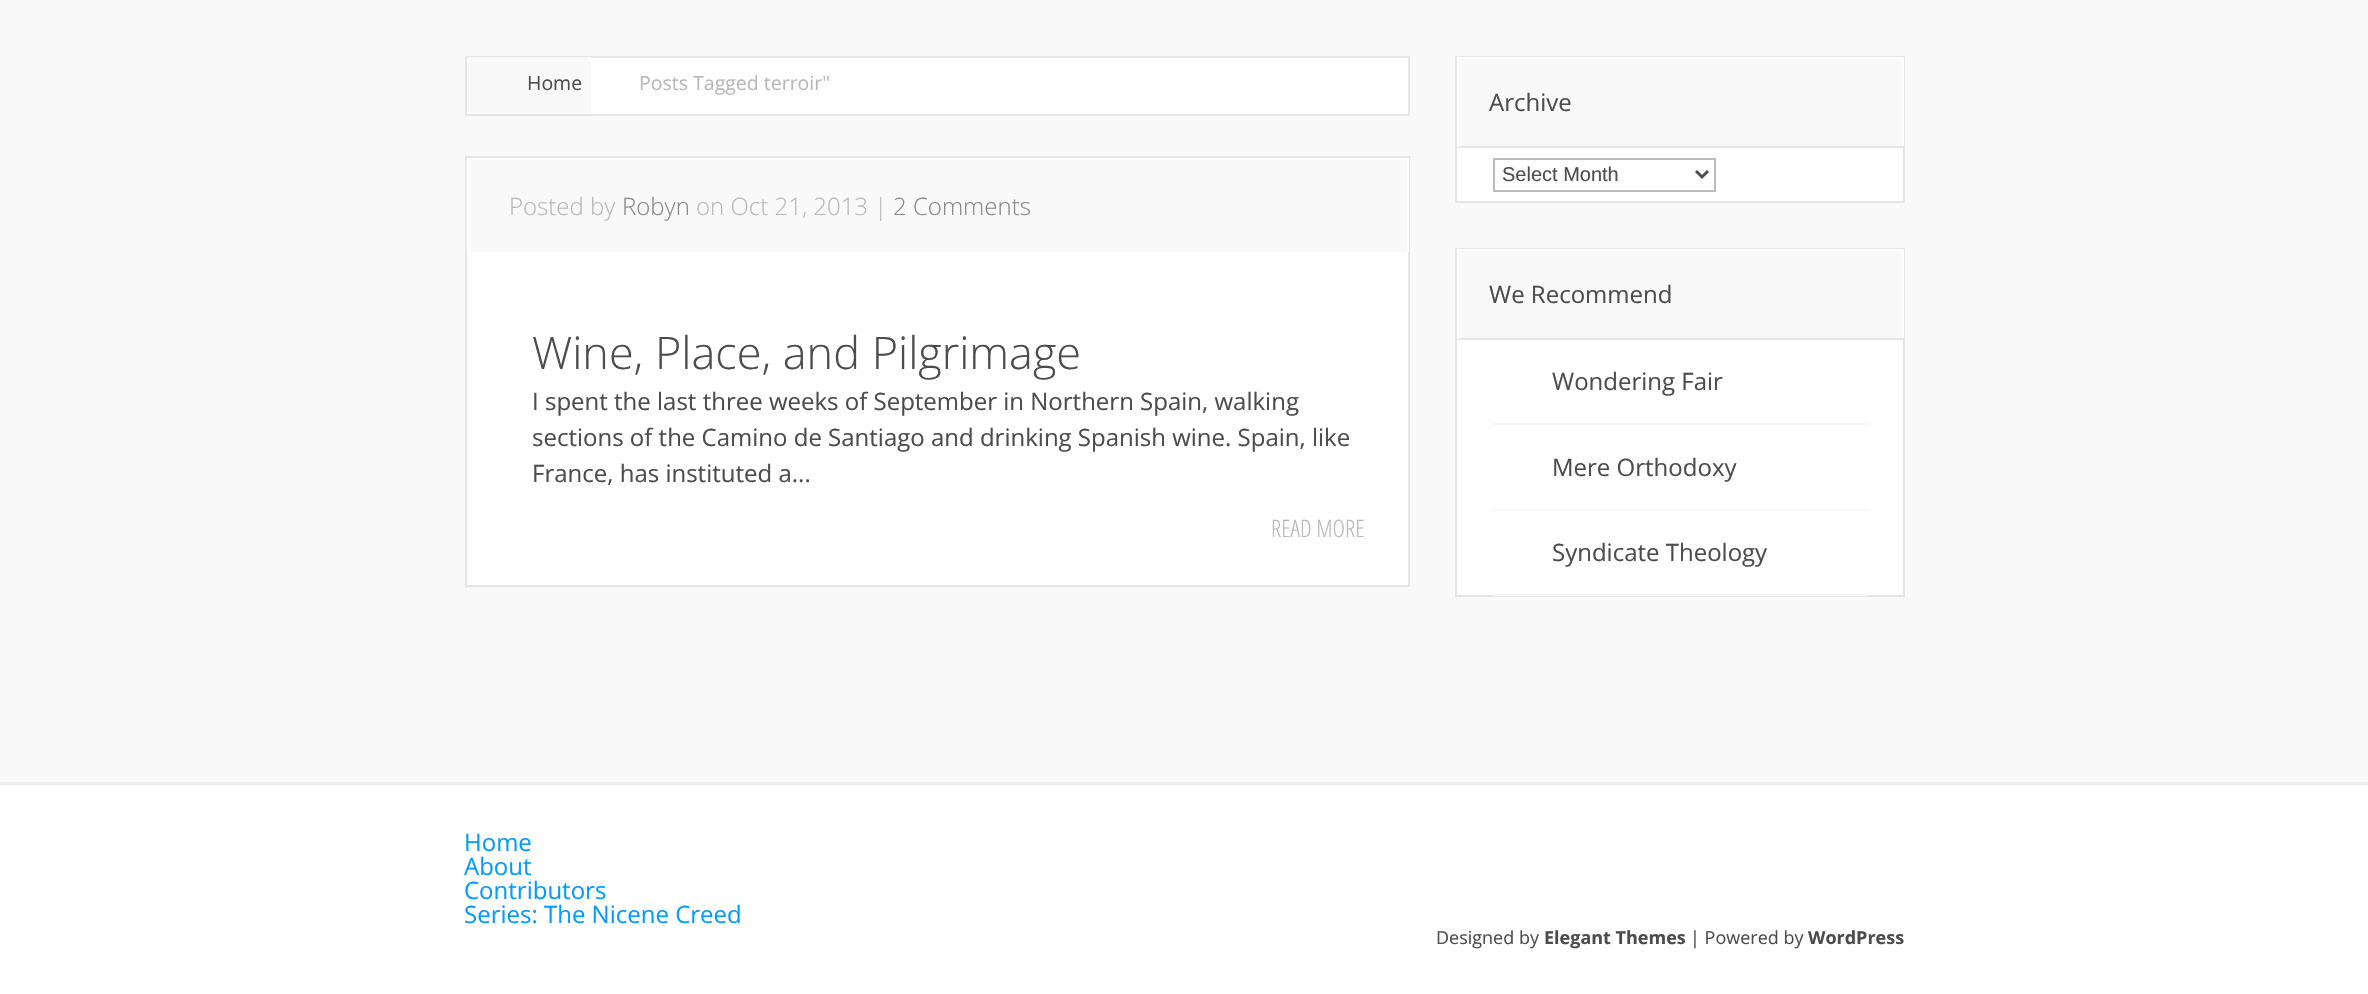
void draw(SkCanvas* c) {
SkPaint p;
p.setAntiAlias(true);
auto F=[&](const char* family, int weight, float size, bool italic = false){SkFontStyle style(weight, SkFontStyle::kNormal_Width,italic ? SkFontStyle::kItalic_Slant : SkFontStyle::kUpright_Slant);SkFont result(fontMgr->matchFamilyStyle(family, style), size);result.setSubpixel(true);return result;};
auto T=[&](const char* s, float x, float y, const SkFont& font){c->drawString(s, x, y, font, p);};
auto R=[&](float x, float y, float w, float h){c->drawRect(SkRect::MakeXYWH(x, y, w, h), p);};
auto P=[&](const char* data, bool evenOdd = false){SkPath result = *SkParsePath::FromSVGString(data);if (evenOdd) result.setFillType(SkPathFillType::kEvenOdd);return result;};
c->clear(0xffffffff);
p.setColor(0xfff9f9f9);
R(0,0,2368,782);
p.setColor(0xffeeeeee);
R(0,782,2368,3);
p.setColor(0xffffffff);
c->drawRect(SkRect::MakeXYWH(466,57,943,58),p);
p.setStroke(true);
p.setStrokeWidth(2);
p.setColor(0xffe5e5e5);
c->drawRect(SkRect::MakeXYWH(466,57,943,58),p);
p.setStroke(false);
p.setColor(0xfff9f9f9);
R(468,57,123,56);
auto f1 = F("Open Sans",400,19.5);
p.setColor(0xff4c4c4c);
T("Home",527,90,f1);
p.setColor(0xffb8b8b8);
T("Posts Tagged terroir\"",639,90,f1);
p.setColor(0xffffffff);
R(467,252,941,333);
p.setStroke(true);
p.setColor(0xffe5e5e5);
c->drawRect(SkRect::MakeXYWH(466,157,943,429),p);
p.setStroke(false);
p.setColor(0xffffffff);
R(467,158,942,2);
R(1407,158,2,94);
R(467,158,2,94);
auto f2 = F("Open Sans",300,24);
p.setColor(0xffb8b8b8);
T("Posted by",509,215,f2);
p.setColor(0xff888888);
T("Robyn",622,215,f2);
p.setColor(0xffb8b8b8);
T("on Oct 21, 2013 |",696,215,f2);
p.setColor(0xff888888);
T("2 Comments",893,215,f2);
auto f3 = F("Open Sans",300,45);
p.setColor(0xff4c4c4c);
T("Wine, Place, and Pilgrimage",532,369,f3);
auto f4 = F("Open Sans",400,24);
T("I spent the last three weeks of September in Northern Spain, walking",532,410,f4);
T("sections of the Camino de Santiago and drinking Spanish wine. Spain, like",532,446,f4);
T("France, has instituted a...",532,482,f4);
auto f5 = F("Open Sans Condensed",300,24);
p.setColor(0xffb8b8b8);
T("READ MORE",1271,537,f5);
p.setColor(0xffffffff);
R(1457,148,446,53);
p.setStroke(true);
p.setColor(0xffe5e5e5);
c->drawRect(SkRect::MakeXYWH(1456,57,448,145),p);
p.setStroke(false);
p.setColor(0xffffffff);
R(1457,57,447,2);
R(1902,57,2,90);
p.setColor(0xffe5e5e5);
R(1457,146,447,2);
p.setColor(0xffffffff);
R(1457,57,2,90);
p.setColor(0xff4c4c4c);
T("Archive",1489,111,f4);
p.setStroke(true);
p.setColor(0xffbbbbbb);
c->drawRect(SkRect::MakeXYWH(1494,159,221,32),p);
p.setStrokeWidth(3);
p.setColor(0xff4e4e4e);
c->drawPath(P("M1696 171l6 6l6-6"),p);
auto f6 = F("Liberation Sans",400,20);
p.setStroke(false);
p.setColor(0xff4c4c4c);
T("Select Month",1502,181,f6);
p.setColor(0xffffffff);
R(1457,340,446,255);
p.setStroke(true);
p.setStrokeWidth(2);
p.setColor(0xffe5e5e5);
c->drawRect(SkRect::MakeXYWH(1456,249,448,347),p);
p.setStroke(false);
p.setColor(0xffffffff);
R(1457,249,447,2);
R(1902,249,2,90);
p.setColor(0xffe5e5e5);
R(1457,338,447,2);
p.setColor(0xffffffff);
R(1457,249,2,90);
p.setColor(0xff4c4c4c);
T("We Recommend",1489,303,f4);
p.setColor(0xfff7f7f7);
R(1493,423,375,2);
p.setColor(0xff4c4c4c);
T("Wondering Fair",1552,390,f4);
p.setColor(0xfff7f7f7);
R(1493,509,375,2);
p.setColor(0xff4c4c4c);
T("Mere Orthodoxy",1552,476,f4);
p.setColor(0xfff7f7f7);
R(1493,594,375,2);
p.setColor(0xff4c4c4c);
T("Syndicate Theology",1552,561,f4);
p.setColor(0xff009cff);
T("Home",464,851,f4);
T("About",464,875,f4);
T("Contributors",464,899,f4);
T("Series: The Nicene Creed",464,923,f4);
auto f7 = F("Open Sans",400,18);
p.setColor(0xff4c4c4c);
T("Designed by",1436,944,f7);
auto f8 = F("Open Sans",700,18);
T("Elegant Themes",1544,944,f8);
T("| Powered by",1690,944,f7);
T("WordPress",1808,944,f8);
}
